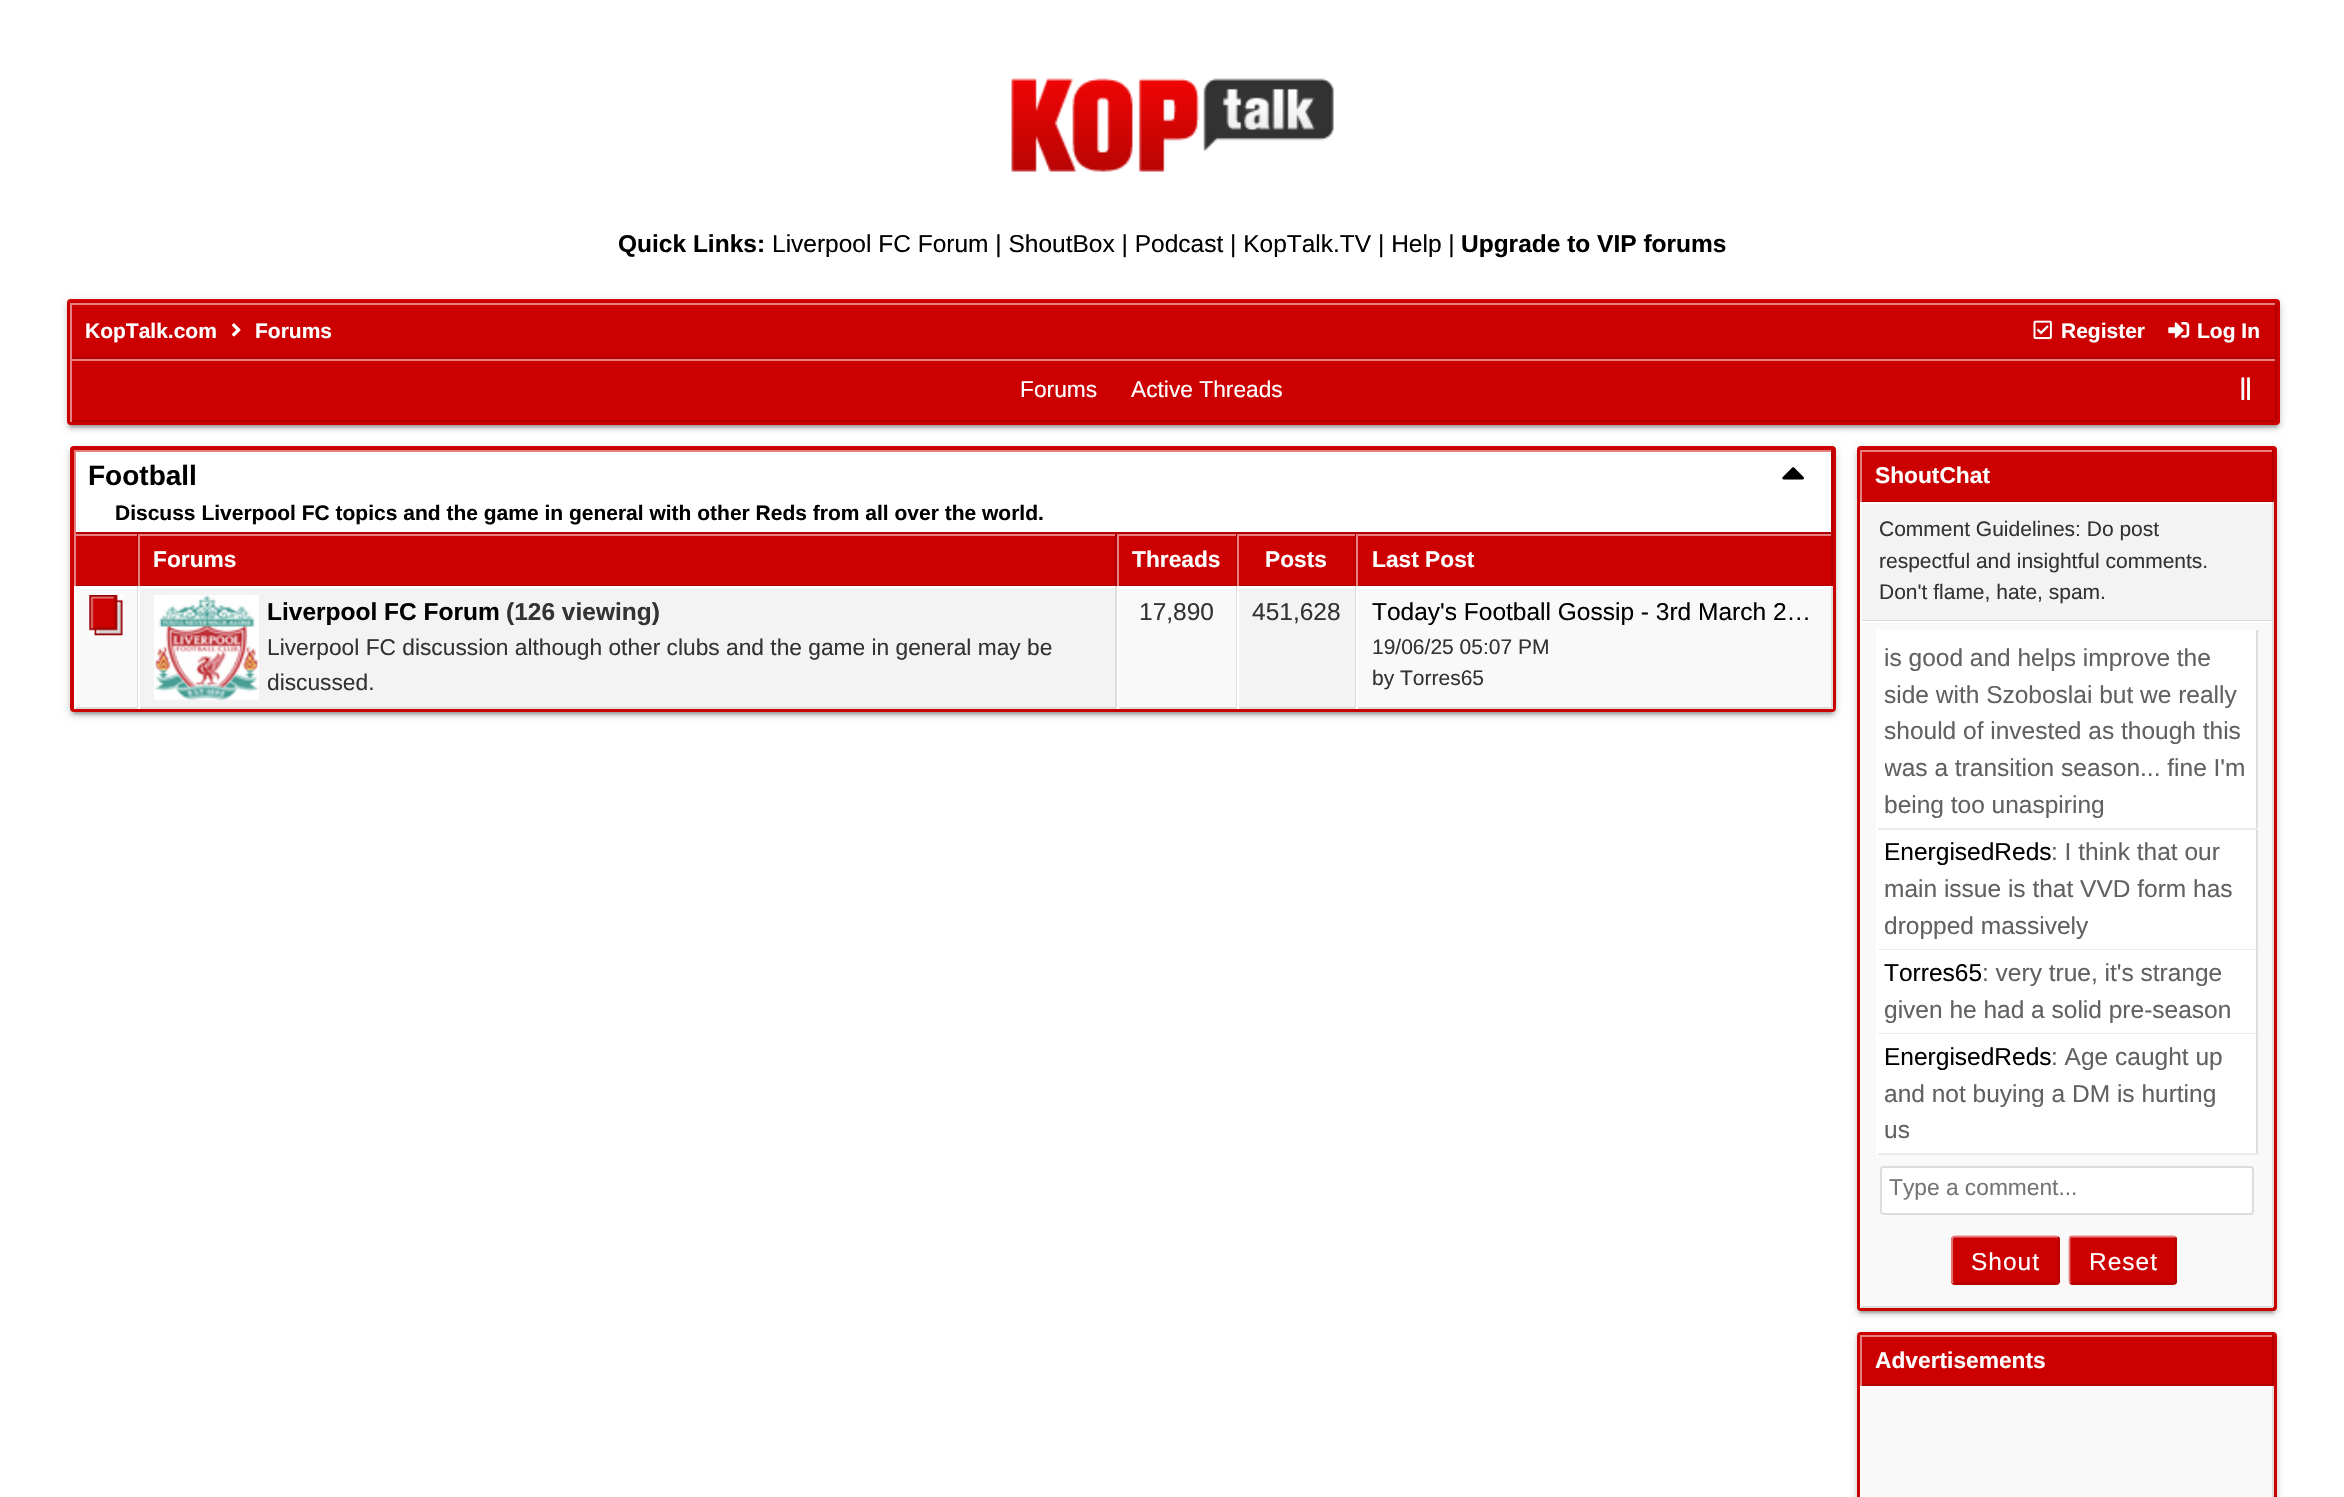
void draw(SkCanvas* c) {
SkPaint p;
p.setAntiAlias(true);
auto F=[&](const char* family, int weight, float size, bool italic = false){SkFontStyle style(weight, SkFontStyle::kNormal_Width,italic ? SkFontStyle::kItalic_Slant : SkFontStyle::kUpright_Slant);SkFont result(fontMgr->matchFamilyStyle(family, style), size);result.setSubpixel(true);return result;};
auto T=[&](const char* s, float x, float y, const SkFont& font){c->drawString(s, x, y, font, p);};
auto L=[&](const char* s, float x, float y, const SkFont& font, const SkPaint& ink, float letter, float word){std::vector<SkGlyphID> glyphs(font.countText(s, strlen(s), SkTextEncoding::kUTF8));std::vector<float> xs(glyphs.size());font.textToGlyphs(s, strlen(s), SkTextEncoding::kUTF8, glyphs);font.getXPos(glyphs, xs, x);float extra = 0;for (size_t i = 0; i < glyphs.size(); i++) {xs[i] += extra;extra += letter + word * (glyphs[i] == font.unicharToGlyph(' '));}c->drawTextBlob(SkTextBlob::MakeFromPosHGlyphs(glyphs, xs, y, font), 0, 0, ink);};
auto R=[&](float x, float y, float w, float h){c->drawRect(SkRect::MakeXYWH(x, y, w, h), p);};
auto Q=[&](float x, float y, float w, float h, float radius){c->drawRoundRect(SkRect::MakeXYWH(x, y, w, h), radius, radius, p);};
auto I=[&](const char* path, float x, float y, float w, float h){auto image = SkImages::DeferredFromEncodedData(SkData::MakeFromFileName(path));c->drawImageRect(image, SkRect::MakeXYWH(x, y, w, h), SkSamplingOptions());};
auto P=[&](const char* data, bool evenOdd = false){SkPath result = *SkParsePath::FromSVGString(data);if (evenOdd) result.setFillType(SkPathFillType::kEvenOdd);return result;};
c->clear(0xffffffff);
I("1.png",1011,78,323,94);
auto f1 = F("Liberation Sans",700,24.5);
p.setColor(0xff000000);
T("Quick Links:",618,252,f1);
auto f2 = F("Liberation Sans",400,24.5);
T("Liverpool FC Forum | ShoutBox | Podcast | KopTalk.TV | Help |",772,252,f2);
T("Upgrade to VIP forums",1461,252,f1);
p.setColor(0x33000000);
p.setMaskFilter(SkMaskFilter::MakeBlur(kNormal_SkBlurStyle, 1));
c->drawRect(SkRect::MakeXYWH(70,308,2207,119),p);
p.setMaskFilter(nullptr);
p.setColor(0x1f000000);
p.setMaskFilter(SkMaskFilter::MakeBlur(kNormal_SkBlurStyle, 4.5));
c->drawRoundRect(SkRect::MakeXYWH(67,301,2213,126),4,4,p);
p.setMaskFilter(nullptr);
p.setColor(0x24000000);
p.setMaskFilter(SkMaskFilter::MakeBlur(kNormal_SkBlurStyle, 2));
c->drawRoundRect(SkRect::MakeXYWH(67,303,2213,126),4,4,p);
p.setMaskFilter(nullptr);
p.setColor(0xffcc0000);
c->drawRoundRect(SkRect::MakeXYWH(68,300,2211,124),3,3,p);
p.setStroke(true);
p.setStrokeWidth(2);
c->drawRoundRect(SkRect::MakeXYWH(68,300,2211,124),3,3,p);
p.setStroke(false);
p.setColor(0xffe68080);
R(70,303,2207,2);
p.setColor(0xffb20000);
R(2275,303,2,56);
R(70,357,2207,2);
p.setColor(0xffe68080);
R(70,303,2,56);
auto f3 = F("Liberation Sans",700,21);
p.setColor(0xffffffff);
T("KopTalk.com",85,338,f3);
I("2.png",232,323,9,14);
T("Forums",255,338,f3);
I("3.png",2033,320,19,20);
T("Register",2061,338,f3);
I("4.png",2168,322,22,16);
T("Log In",2197,338,f3);
p.setColor(0xffe68080);
R(70,359,2207,2);
p.setColor(0xffb20000);
R(2275,359,2,63);
R(70,420,2207,2);
p.setColor(0xffe68080);
R(70,359,2,63);
auto f4 = F("Liberation Sans",400,22.75);
p.setColor(0xffffffff);
T("Forums",1020,397,f4);
T("Active Threads",1131,397,f4);
I("5.png",2241,377,9,24);
p.setColor(0x33000000);
p.setMaskFilter(SkMaskFilter::MakeBlur(kNormal_SkBlurStyle, 1));
c->drawRect(SkRect::MakeXYWH(74,455,1758,259),p);
p.setMaskFilter(nullptr);
p.setColor(0x1f000000);
p.setMaskFilter(SkMaskFilter::MakeBlur(kNormal_SkBlurStyle, 4.5));
c->drawRoundRect(SkRect::MakeXYWH(70,448,1766,266),4,4,p);
p.setMaskFilter(nullptr);
p.setColor(0x24000000);
p.setMaskFilter(SkMaskFilter::MakeBlur(kNormal_SkBlurStyle, 2));
c->drawRoundRect(SkRect::MakeXYWH(70,450,1766,266),4,4,p);
p.setMaskFilter(nullptr);
p.setColor(0xffcc0000);
c->drawRoundRect(SkRect::MakeXYWH(71,447,1764,264),3,3,p);
p.setStroke(true);
c->drawRoundRect(SkRect::MakeXYWH(71,447,1764,264),3,3,p);
p.setStroke(false);
p.setColor(0xffffffff);
R(76,452,1755,80);
p.setColor(0xffe68080);
R(74,450,1758,2);
p.setColor(0xffb20000);
R(1831,450,2,84);
R(74,532,1758,2);
p.setColor(0xffe68080);
R(74,450,2,84);
auto f5 = F("Liberation Sans",700,28);
p.setColor(0xff000000);
T("Football",88,485,f5);
I("6.png",1782,467,22,13);
T("Discuss Liverpool FC topics and the game in general with other Reds from all over the world.",115,520,f3);
p.setColor(0xffe68080);
R(74,534,1758,2);
p.setColor(0xffb20000);
R(137,534,1,52);
R(74,585,64,1);
p.setColor(0xffe68080);
R(74,534,2,52);
p.setColor(0xffb20000);
R(1115,534,2,52);
R(138,585,979,1);
p.setColor(0xffe68080);
R(138,534,2,52);
auto f6 = F("Liberation Sans",700,22.75);
p.setColor(0xffffffff);
T("Forums",153,567,f6);
p.setColor(0xffb20000);
R(1236,534,1,52);
R(1117,585,120,1);
p.setColor(0xffe68080);
R(1117,534,2,52);
p.setColor(0xffffffff);
T("Threads",1132,567,f6);
p.setColor(0xffb20000);
R(1355,534,1,52);
R(1237,585,119,1);
p.setColor(0xffe68080);
R(1237,534,2,52);
p.setColor(0xffffffff);
T("Posts",1265,567,f6);
p.setColor(0xffb20000);
R(1831,534,2,52);
R(1356,585,476,1);
p.setColor(0xffe68080);
R(1356,534,2,52);
p.setColor(0xffffffff);
T("Last Post",1372,567,f6);
p.setColor(0xfff9f9f9);
R(76,588,61,119);
p.setColor(0xffffffff);
R(74,586,1758,2);
p.setColor(0xffdddddd);
R(137,586,1,123);
R(74,707,64,2);
p.setColor(0xffffffff);
R(74,586,2,123);
I("7.png",89,595,34,41);
p.setColor(0xfff3f3f3);
R(140,588,975,119);
p.setColor(0xffdddddd);
R(1115,586,2,123);
R(138,707,979,2);
p.setColor(0xffffffff);
R(138,586,2,123);
I("8.png",154,595,105,105);
p.setColor(0xff000000);
T("Liverpool FC Forum",267,620,f1);
p.setColor(0xff333333);
T("(126 viewing)",506,620,f1);
T("Liverpool FC discussion although other clubs and the game in general may be",267,655,f4);
T("discussed.",267,690,f4);
p.setColor(0xfff9f9f9);
R(1119,588,117,119);
p.setColor(0xffdddddd);
R(1236,586,1,123);
R(1117,707,120,2);
p.setColor(0xffffffff);
R(1117,586,2,123);
p.setColor(0xff333333);
T("17,890",1139,620,f2);
p.setColor(0xfff3f3f3);
R(1239,588,116,119);
p.setColor(0xffdddddd);
R(1355,586,1,123);
R(1237,707,119,2);
p.setColor(0xffffffff);
R(1237,586,2,123);
p.setColor(0xff333333);
T("451,628",1252,620,f2);
p.setColor(0xfff9f9f9);
R(1358,588,473,119);
p.setColor(0xffdddddd);
R(1831,586,2,123);
R(1356,707,476,2);
p.setColor(0xffffffff);
R(1356,586,2,123);
p.setColor(0xff000000);
T("Today's Football Gossip - 3rd March 2…",1372,620,f2);
auto f7 = F("Liberation Sans",400,21);
p.setColor(0xff333333);
T("19/06/25 05:07 PM",1372,654,f7);
T("by Torres65",1372,685,f7);
p.setColor(0x33000000);
p.setMaskFilter(SkMaskFilter::MakeBlur(kNormal_SkBlurStyle, 1));
c->drawRect(SkRect::MakeXYWH(1860,455,413,858),p);
p.setMaskFilter(nullptr);
p.setColor(0x1f000000);
p.setMaskFilter(SkMaskFilter::MakeBlur(kNormal_SkBlurStyle, 4.5));
c->drawRoundRect(SkRect::MakeXYWH(1857,448,420,865),4,4,p);
p.setMaskFilter(nullptr);
p.setColor(0x24000000);
p.setMaskFilter(SkMaskFilter::MakeBlur(kNormal_SkBlurStyle, 2));
c->drawRoundRect(SkRect::MakeXYWH(1857,450,420,864),4,4,p);
p.setMaskFilter(nullptr);
p.setColor(0xffcc0000);
c->drawRoundRect(SkRect::MakeXYWH(1858,447,418,863),3,3,p);
p.setStroke(true);
c->drawRoundRect(SkRect::MakeXYWH(1858,447,418,863),3,3,p);
p.setStroke(false);
p.setColor(0xffe68080);
R(1860,450,413,2);
p.setColor(0xffb20000);
R(2272,450,2,52);
R(1860,501,413,1);
p.setColor(0xffe68080);
R(1860,450,2,52);
p.setColor(0xffffffff);
T("ShoutChat",1875,483,f6);
p.setColor(0xfff3f3f3);
R(1862,504,410,116);
p.setColor(0xffffffff);
R(1860,502,413,2);
p.setColor(0xffdddddd);
R(2272,502,2,119);
R(1860,620,413,1);
p.setColor(0xffffffff);
R(1860,502,2,119);
p.setColor(0xff333333);
T("Comment Guidelines: Do post",1879,536,f7);
T("respectful and insightful comments.",1879,568,f7);
T("Don't flame, hate, spam.",1879,599,f7);
p.setColor(0xfff9f9f9);
R(1862,623,410,683);
p.setColor(0xffffffff);
R(1860,621,413,2);
p.setColor(0xffdddddd);
R(2272,621,2,686);
R(1860,1306,413,2);
p.setColor(0xffffffff);
R(1860,621,2,686);
R(1878,630,378,198);
p.setColor(0xffdddddd);
R(2256,630,2,525);
p.setColor(0xffebebeb);
R(1876,828,382,2);
p.setColor(0xffffffff);
R(1876,630,2,200);
p.setColor(0xff616161);
T("is good and helps improve the",1884,666,f2);
T("side with Szoboslai but we really",1884,703,f2);
T("should of invested as though this",1884,739,f2);
c->save();
c->clipRect(SkRect::MakeXYWH(1885,630,364,194));
T("was a transition season... fine I'm",1884,776,f2);
c->restore();
T("being too unaspiring",1884,813,f2);
p.setColor(0xffffffff);
R(1878,830,378,119);
p.setColor(0xffebebeb);
R(1876,949,382,1);
p.setColor(0xffffffff);
R(1876,830,2,120);
p.setColor(0xff000000);
T("EnergisedReds",1884,860,f2);
p.setColor(0xff616161);
T(": I think that our",2051,860,f2);
T("main issue is that VVD form has",1884,897,f2);
T("dropped massively",1884,934,f2);
p.setColor(0xffffffff);
R(1878,950,378,83);
p.setColor(0xffebebeb);
R(1876,1033,382,1);
p.setColor(0xffffffff);
R(1876,950,2,84);
p.setColor(0xff000000);
T("Torres65",1884,981,f2);
p.setColor(0xff616161);
T(": very true, it's strange",1982,981,f2);
T("given he had a solid pre-season",1884,1018,f2);
p.setColor(0xffffffff);
R(1878,1034,378,119);
p.setColor(0xffebebeb);
R(1876,1153,382,2);
p.setColor(0xffffffff);
R(1876,1034,2,121);
p.setColor(0xff000000);
T("EnergisedReds",1884,1065,f2);
p.setColor(0xff616161);
T(": Age caught up",2051,1065,f2);
T("and not buying a DM is hurting",1884,1102,f2);
T("us",1884,1138,f2);
p.setColor(0xffffffff);
c->drawRoundRect(SkRect::MakeXYWH(1881,1167,372,47),3,3,p);
p.setStroke(true);
p.setColor(0xffdddddd);
c->drawRoundRect(SkRect::MakeXYWH(1881,1167,372,47),3,3,p);
p.setStroke(false);
p.setColor(0xff757575);
T("Type a comment...",1889,1195,f4);
p.setColor(0xffcc0000);
Q(1951,1236,109,49,4);
p.setStroke(true);
p.setStrokeWidth(1.8);
p.setColor(0xffb20000);
c->drawPath(P("M2058 1237l1 2v42l-1 2l-2 .5h-101l-2-.5"),p);
p.setColor(0xffe68080);
c->drawPath(P("M1953 1283l-1-2v-42l1-2l2-.5h101l2 .5"),p);
p.setStroke(false);
p.setColor(0xffffffff);
L("Shout",1971,1270,f2,p,1,0);
p.setColor(0xffcc0000);
Q(2069,1236,108,49,4);
p.setStroke(true);
p.setColor(0xffb20000);
c->drawPath(P("M2175.5 1237l.5 2v42l-.5 2l-2 .5h-101.5l-2-.5"),p);
p.setColor(0xffe68080);
c->drawPath(P("M2070 1283l-.5-2v-42l.5-2l2-.5h101.5l2 .5"),p);
p.setStroke(false);
p.setColor(0xffffffff);
L("Reset",2089,1270,f2,p,1,0);
p.setColor(0x1f000000);
p.setMaskFilter(SkMaskFilter::MakeBlur(kNormal_SkBlurStyle, 4.5));
c->drawRoundRect(SkRect::MakeXYWH(1857,1334,420,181),4,4,p);
p.setMaskFilter(nullptr);
p.setColor(0x24000000);
p.setMaskFilter(SkMaskFilter::MakeBlur(kNormal_SkBlurStyle, 2));
c->drawRoundRect(SkRect::MakeXYWH(1857,1335,420,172),4,4,p);
p.setMaskFilter(nullptr);
p.setColor(0xffcc0000);
c->drawRoundRect(SkRect::MakeXYWH(1858,1333,418,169),3,3,p);
p.setStroke(true);
p.setStrokeWidth(2);
c->drawRoundRect(SkRect::MakeXYWH(1858,1333,418,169),3,3,p);
p.setStroke(false);
p.setColor(0xffe68080);
R(1860,1335,413,2);
p.setColor(0xffb20000);
R(2272,1335,2,51);
R(1860,1384,413,2);
p.setColor(0xffe68080);
R(1860,1335,2,51);
p.setColor(0xffffffff);
T("Advertisements",1875,1368,f6);
p.setColor(0xfff9f9f9);
R(1862,1388,410,109);
p.setColor(0xffffffff);
R(1860,1386,413,2);
p.setColor(0xffdddddd);
R(2272,1386,2,111);
p.setColor(0xffffffff);
R(1860,1386,2,111);
}
